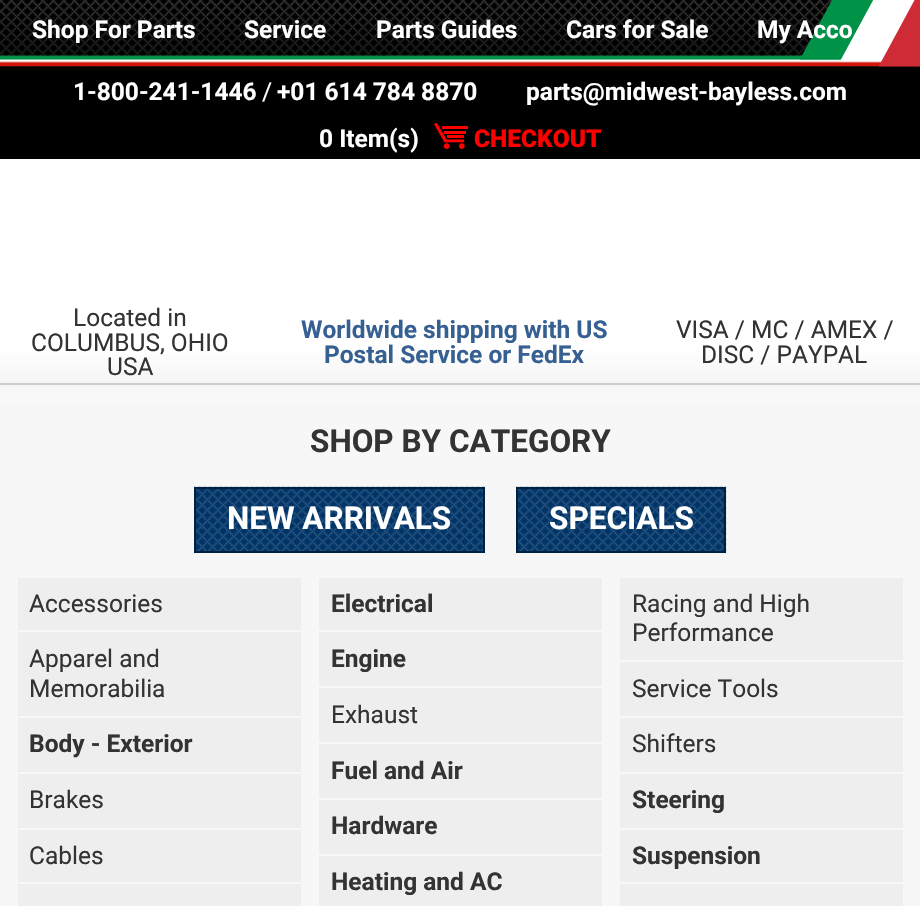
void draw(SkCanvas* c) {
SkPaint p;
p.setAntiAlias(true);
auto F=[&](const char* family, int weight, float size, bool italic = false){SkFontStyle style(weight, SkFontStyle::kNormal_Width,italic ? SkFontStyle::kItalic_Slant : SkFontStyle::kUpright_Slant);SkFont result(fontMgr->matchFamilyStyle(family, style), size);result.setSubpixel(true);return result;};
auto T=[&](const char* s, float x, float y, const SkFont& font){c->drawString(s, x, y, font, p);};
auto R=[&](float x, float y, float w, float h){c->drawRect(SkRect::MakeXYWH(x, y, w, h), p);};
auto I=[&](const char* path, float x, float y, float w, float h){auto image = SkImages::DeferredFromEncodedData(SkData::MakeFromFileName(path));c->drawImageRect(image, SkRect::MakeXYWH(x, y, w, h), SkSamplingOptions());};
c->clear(0xffffffff);
{
const SkColor colors[] = {0xfff5f5f5,0xffffffff};
const float stops[] = {0,.1};
const SkPoint ends[] = {{460,383}, {460,0}};
p.setShader(SkGradientShader::MakeLinear(ends, colors, stops, 2, SkTileMode::kClamp));
p.setAlpha(255);
}
R(0,354,920,29);
p.setShader(nullptr);
p.setColor(0xffcccccc);
R(0,383,920,2);
p.setColor(0xff000000);
R(0,0,920,159);
I("1.png",0,0,920,67);
auto f1 = F("Roboto",700,24.5);
p.setColor(0xffffffff);
T("Shop For Parts",32,38,f1);
T("Service",244,38,f1);
T("Parts Guides",376,38,f1);
T("Cars for Sale",566,38,f1);
T("My Acco",757,38,f1);
T("1-800-241-1446",73,100,f1);
auto f2 = F("Roboto",400,24.5);
T("/",262,100,f2);
T("+01 614 784 8870",277,100,f1);
T("parts@midwest-bayless.com",526,100,f1);
T("0 Item(s)",319,147,f1);
I("2.png",434,123,34,26);
auto f3 = F("Roboto",900,24.5);
p.setColor(0xffff0000);
T("CHECKOUT",474,147,f3);
p.setColor(0xff333333);
T("Located in",73,326,f2);
T("COLUMBUS, OHIO",31,351,f2);
T("USA",107,375,f2);
p.setColor(0xff366092);
T("Worldwide shipping with US",301,338,f1);
T("Postal Service or FedEx",324,363,f1);
p.setColor(0xff333333);
T("VISA / MC / AMEX /",676,338,f2);
T("DISC / PAYPAL",701,363,f2);
{
const SkColor colors[] = {0xfff5f5f5,0xffffffff};
const float stops[] = {0,.02};
const SkPoint ends[] = {{460,385}, {460,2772}};
p.setShader(SkGradientShader::MakeLinear(ends, colors, stops, 2, SkTileMode::kClamp));
p.setAlpha(255);
}
R(0,385,920,18);
p.setShader(nullptr);
p.setColor(0xfff7f7f7);
R(0,403,920,503);
auto f4 = F("Roboto",700,31.5);
p.setColor(0xff333333);
T("SHOP BY CATEGORY",310,452,f4);
p.setColor(0xff003366);
R(196,489,287,62);
I("3.png",194,486,291,65);
p.setStroke(true);
p.setStrokeWidth(2);
p.setColor(0xff012141);
c->drawRect(SkRect::MakeXYWH(195,488,289,64),p);
p.setStroke(false);
p.setColor(0xffffffff);
T("NEW ARRIVALS",227,529,f4);
p.setColor(0xff003366);
R(518,489,206,62);
I("4.png",516,486,211,67);
p.setStroke(true);
p.setColor(0xff012141);
c->drawRect(SkRect::MakeXYWH(517,488,208,64),p);
p.setStroke(false);
p.setColor(0xffffffff);
T("SPECIALS",549,529,f4);
p.setColor(0xffeeeeee);
R(18,578,283,52);
p.setColor(0xff333333);
T("Accessories",29,612,f2);
p.setColor(0xffeeeeee);
R(319,578,283,52);
p.setColor(0xff333333);
T("Electrical",331,612,f1);
p.setColor(0xffeeeeee);
R(620,578,283,82);
p.setColor(0xff333333);
T("Racing and High",632,612,f2);
T("Performance",632,641,f2);
p.setColor(0xffeeeeee);
R(18,632,283,84);
p.setColor(0xff333333);
T("Apparel and",29,667,f2);
T("Memorabilia",29,697,f2);
p.setColor(0xffeeeeee);
R(319,632,283,54);
p.setColor(0xff333333);
T("Engine",331,667,f1);
p.setColor(0xffeeeeee);
R(620,662,283,54);
p.setColor(0xff333333);
T("Service Tools",632,697,f2);
p.setColor(0xffeeeeee);
R(319,688,283,54);
p.setColor(0xff333333);
T("Exhaust",331,723,f2);
p.setColor(0xffeeeeee);
R(18,718,283,54);
p.setColor(0xff333333);
T("Body - Exterior",29,752,f1);
p.setColor(0xffeeeeee);
R(620,718,283,54);
p.setColor(0xff333333);
T("Shifters",632,752,f2);
p.setColor(0xffeeeeee);
R(319,744,283,54);
p.setColor(0xff333333);
T("Fuel and Air",331,779,f1);
p.setColor(0xffeeeeee);
R(18,774,283,54);
p.setColor(0xff333333);
T("Brakes",29,808,f2);
p.setColor(0xffeeeeee);
R(620,774,283,54);
p.setColor(0xff333333);
T("Steering",632,808,f1);
p.setColor(0xffeeeeee);
R(319,800,283,54);
p.setColor(0xff333333);
T("Hardware",331,834,f1);
p.setColor(0xffeeeeee);
R(18,830,283,52);
p.setColor(0xff333333);
T("Cables",29,864,f2);
p.setColor(0xffeeeeee);
R(620,830,283,52);
p.setColor(0xff333333);
T("Suspension",632,864,f1);
p.setColor(0xffeeeeee);
R(18,884,283,22);
R(319,856,283,50);
p.setColor(0xff333333);
T("Heating and AC",331,890,f1);
p.setColor(0xffeeeeee);
R(620,884,283,22);
}
